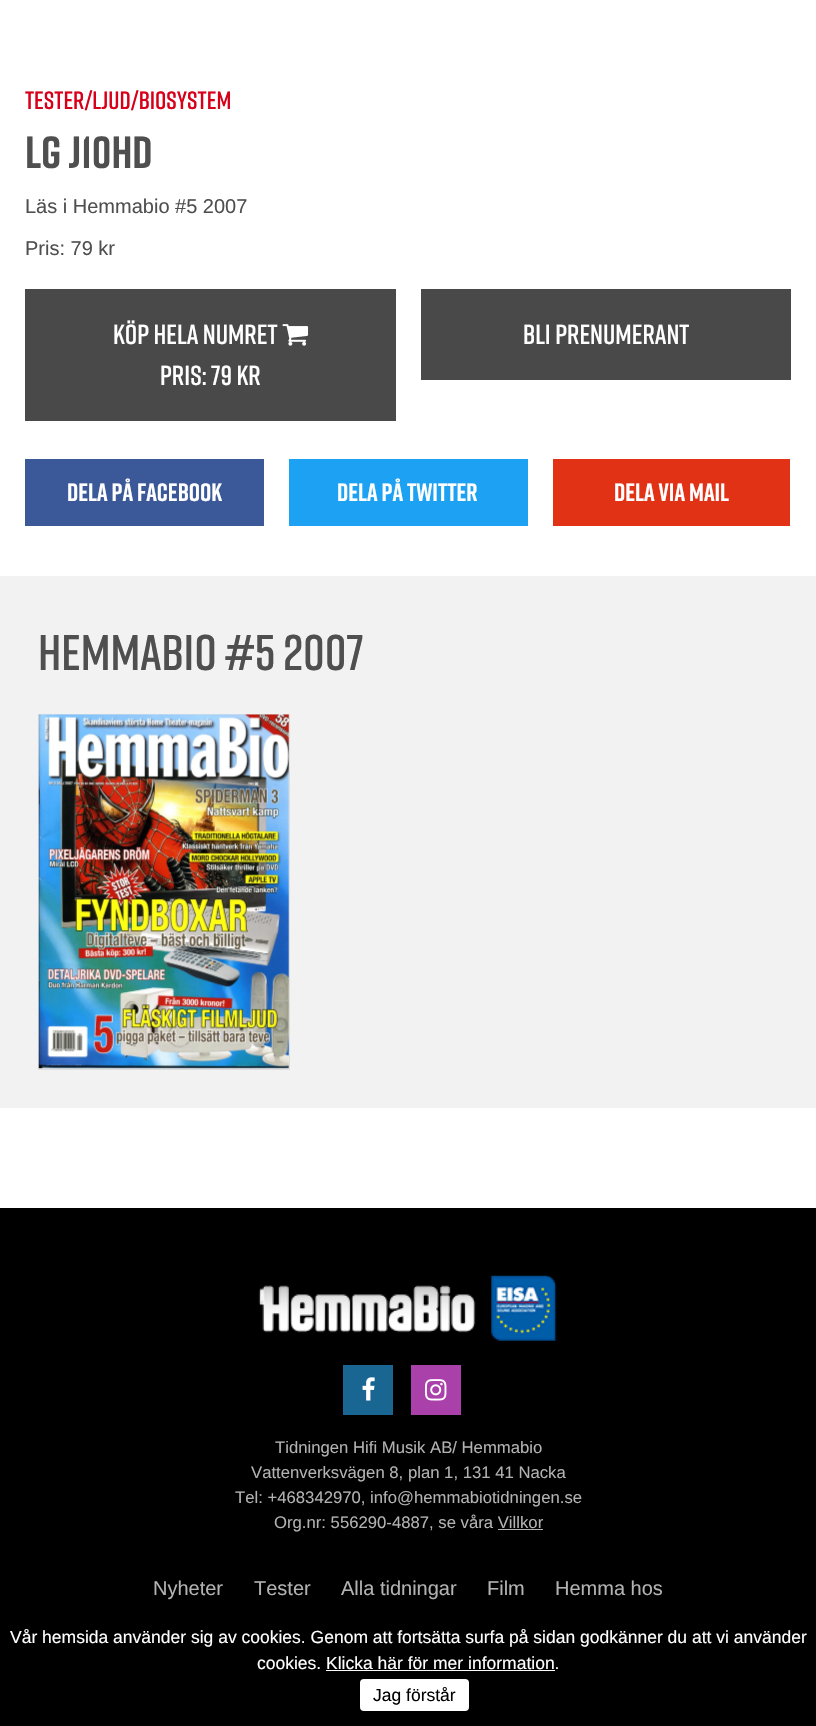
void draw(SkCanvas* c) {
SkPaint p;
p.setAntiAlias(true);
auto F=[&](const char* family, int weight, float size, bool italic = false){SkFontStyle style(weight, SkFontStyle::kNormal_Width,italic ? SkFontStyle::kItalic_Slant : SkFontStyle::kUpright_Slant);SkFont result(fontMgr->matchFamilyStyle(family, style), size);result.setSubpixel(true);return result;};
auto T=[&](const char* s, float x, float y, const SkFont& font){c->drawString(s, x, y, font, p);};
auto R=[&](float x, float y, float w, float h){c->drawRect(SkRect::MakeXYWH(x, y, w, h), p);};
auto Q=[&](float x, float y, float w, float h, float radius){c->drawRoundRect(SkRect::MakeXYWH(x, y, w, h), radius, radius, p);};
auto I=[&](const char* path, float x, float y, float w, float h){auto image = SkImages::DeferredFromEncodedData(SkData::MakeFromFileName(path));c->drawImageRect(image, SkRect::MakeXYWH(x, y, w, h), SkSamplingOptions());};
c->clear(0xffffffff);
auto f1 = F("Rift",600,25);
p.setColor(0xffd80019);
T("Tester/Ljud/Biosystem",25,109,f1);
auto f2 = F("Rift",700,45);
p.setColor(0xff4f4f4f);
T("LG J10HD",25,168,f2);
auto f3 = F("Liberation Sans",400,20);
T("Läs i Hemmabio #5 2007",25,213,f3);
T("Pris: 79 kr",25,255,f3);
p.setColor(0xff494949);
R(25,289,371,132);
auto f4 = F("Rift",600,27.5);
p.setColor(0xffffffff);
T("Köp hela numret",113,344,f4);
I("1.png",282,324,27,22);
T("Pris: 79 kr",160,385,f4);
p.setColor(0xff494949);
R(421,289,370,91);
p.setColor(0xffffffff);
T("Bli prenumerant",523,344,f4);
p.setColor(0xff3b5899);
R(25,459,239,67);
auto f5 = F("Rift",700,25);
p.setColor(0xffffffff);
T("DELA PÅ FACEBOOK",67,501,f5);
p.setColor(0xff1da1f3);
R(289,459,239,67);
p.setColor(0xffffffff);
T("DELA PÅ TWITTER",337,501,f5);
p.setColor(0xffe13215);
R(553,459,237,67);
p.setColor(0xffffffff);
T("DELA VIA MAIL",614,501,f5);
p.setColor(0xfff2f2f2);
R(0,576,816,532);
auto f6 = F("Rift",600,50);
p.setColor(0xff4f4f4f);
T("Hemmabio #5 2007",38,670,f6);
p.setStroke(true);
p.setStrokeWidth(1);
p.setColor(0xffdedede);
c->drawRect(SkRect::MakeXYWH(38.5,714.5,251,355),p);
I("2.png",38,714,251,355);
p.setStroke(false);
p.setColor(0xff000000);
R(0,1208,816,518);
I("3.png",258,1285,218,48);
I("4.png",491,1275,66,66);
p.setColor(0xff196693);
R(343,1365,50,50);
I("5.png",362,1377,13,24);
p.setColor(0xffaa40aa);
R(411,1365,50,50);
I("6.png",425,1379,22,22);
auto f7 = F("Liberation Sans",400,16.7);
p.setColor(0xffb2b2b2);
T("Tidningen Hifi Musik AB/ Hemmabio",275,1453,f7);
T("Vattenverksvägen 8, plan 1, 131 41 Nacka",251,1478,f7);
T("Tel: +468342970, info@hemmabiotidningen.se",235,1503,f7);
T("Org.nr: 556290-4887, se våra Villkor",274,1528,f7);
R(498,1529,45,1);
T("Nyheter",153,1595,f3);
T("Tester",254,1595,f3);
T("Alla tidningar",341,1595,f3);
T("Film",487,1595,f3);
T("Hemma hos",555,1595,f3);
auto f8 = F("Liberation Sans",400,17.5);
p.setColor(0xffffffff);
T("Vår hemsida använder sig av cookies. Genom att fortsätta surfa på sidan godkänner du att vi använder",10,1643,f8);
T("cookies. Klicka här för mer information.",257,1669,f8);
R(326,1670,229,1);
Q(360,1679,109,32,4);
p.setColor(0xff000000);
T("Jag förstår",373,1701,f8);
}
